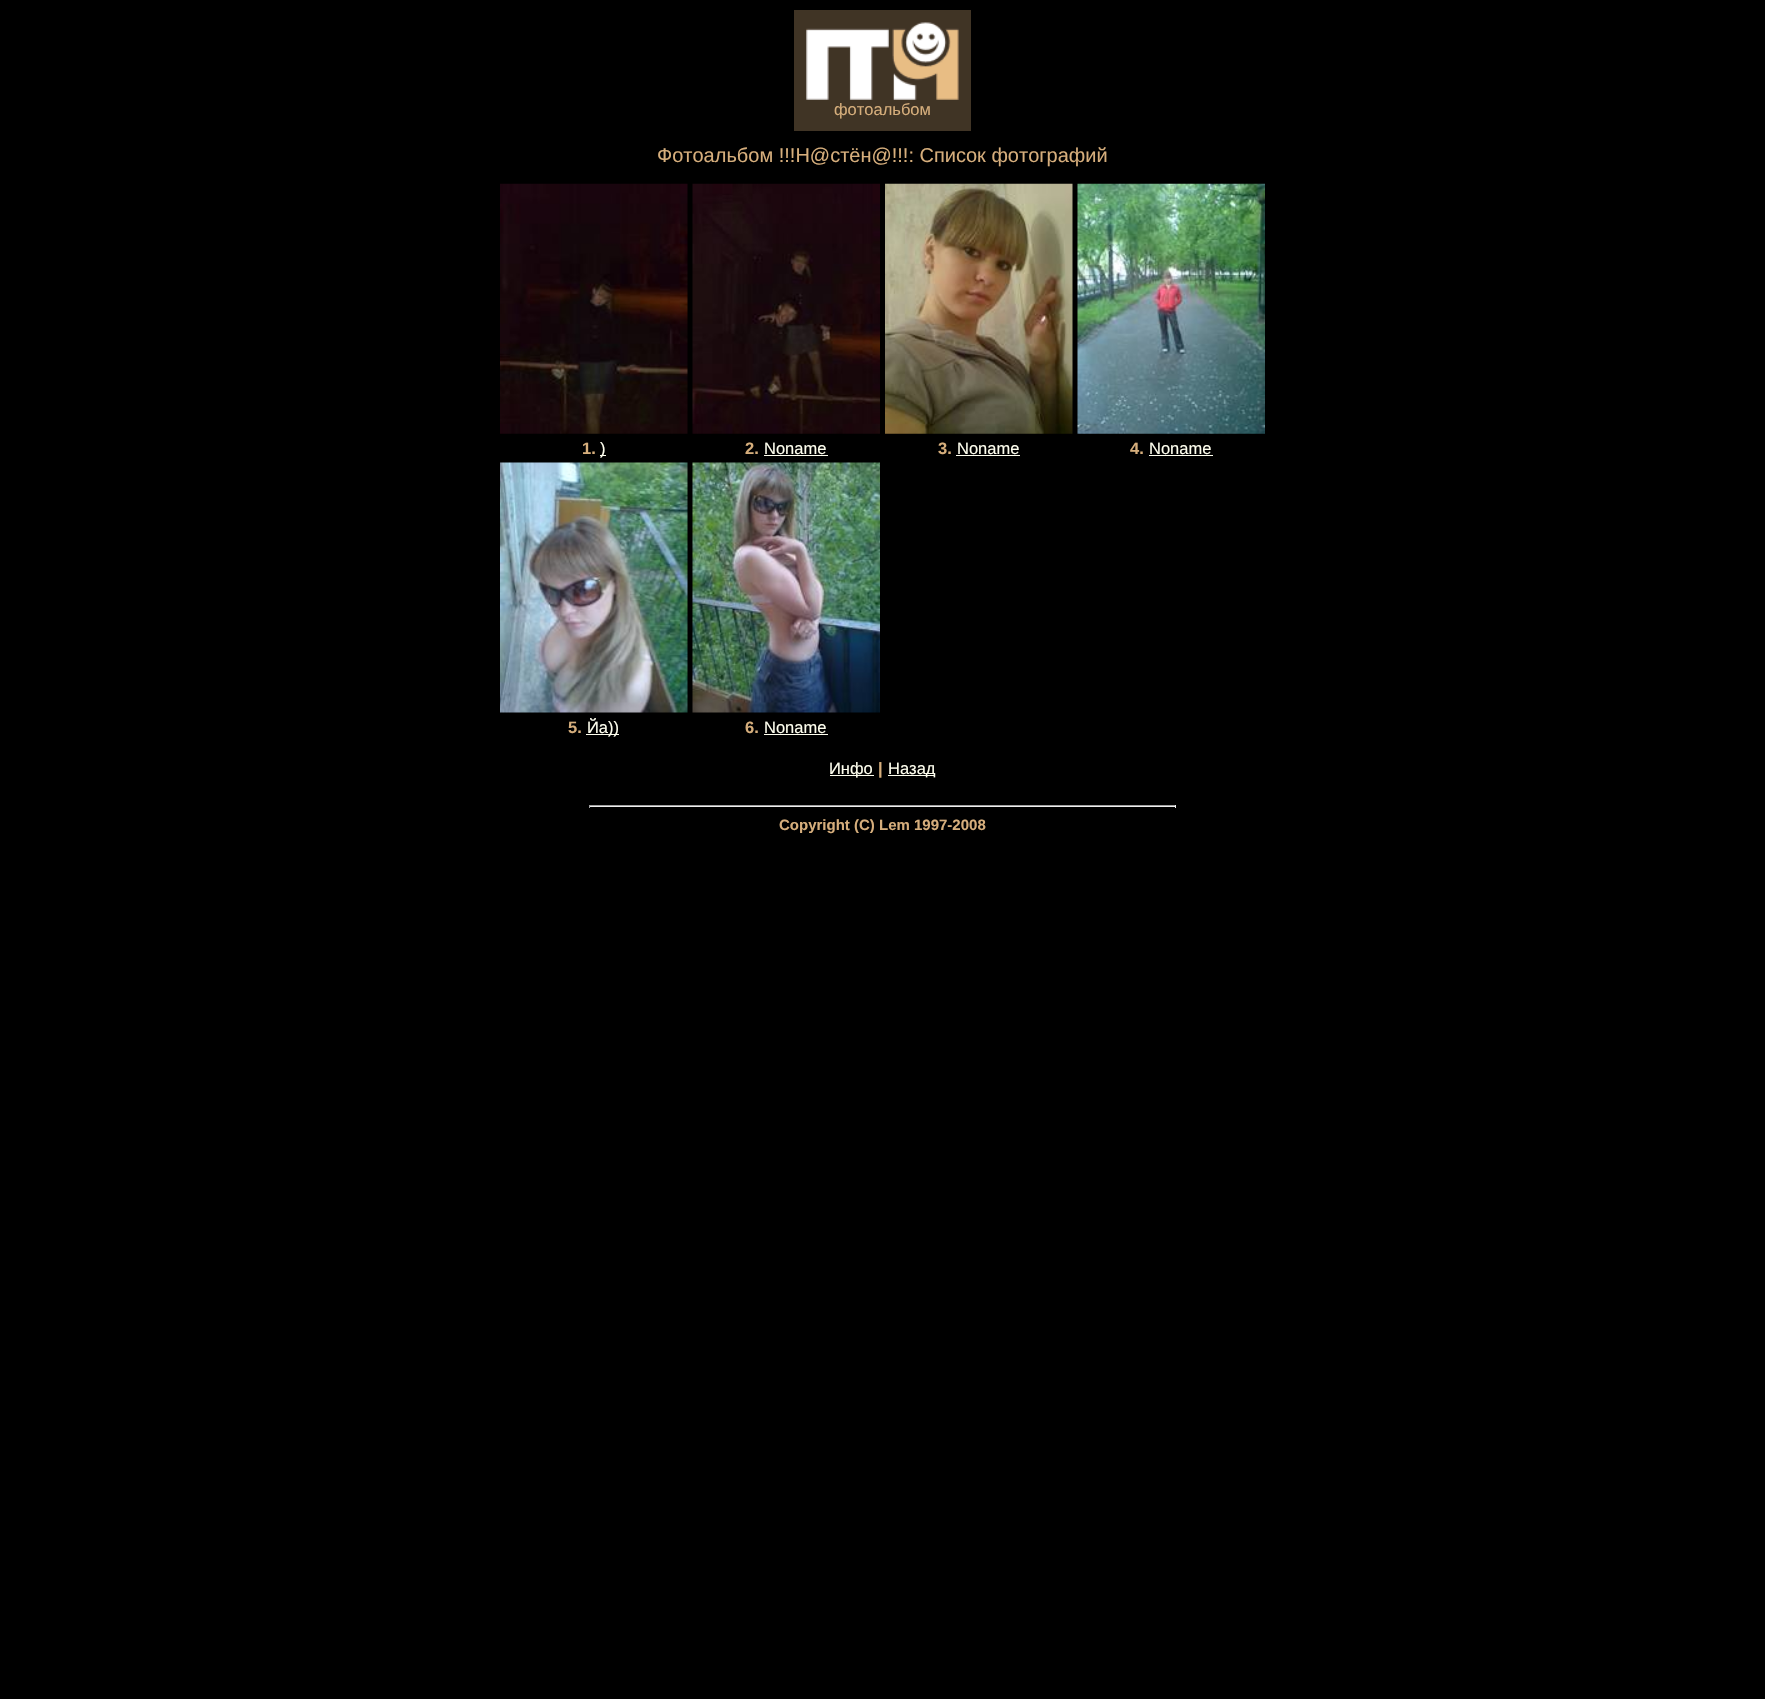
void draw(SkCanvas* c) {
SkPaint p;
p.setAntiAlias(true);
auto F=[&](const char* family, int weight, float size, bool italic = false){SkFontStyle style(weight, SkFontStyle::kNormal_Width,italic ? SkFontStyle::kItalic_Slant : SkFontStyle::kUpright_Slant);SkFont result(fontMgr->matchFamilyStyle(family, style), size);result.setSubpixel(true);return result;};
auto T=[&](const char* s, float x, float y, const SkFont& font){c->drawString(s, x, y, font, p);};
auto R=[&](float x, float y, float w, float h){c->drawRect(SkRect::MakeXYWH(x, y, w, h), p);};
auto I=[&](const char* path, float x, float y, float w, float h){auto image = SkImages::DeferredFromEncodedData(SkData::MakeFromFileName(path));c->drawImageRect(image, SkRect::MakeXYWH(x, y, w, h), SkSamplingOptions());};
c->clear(0xff000000);
p.setColor(0xff403425);
R(794,10,177,121);
I("1.png",806,22,153,78);
auto f1 = F("Liberation Sans",400,16.5);
p.setColor(0xffd6ae7c);
T("фотоальбом",834,115,f1);
auto f2 = F("Liberation Sans",400,20);
T("Фотоальбом !!!Н@стён@!!!: Список фотографий",657,162,f2);
I("2.png",500,183,188,251);
I("3.png",692,183,188,251);
I("4.png",885,183,188,251);
I("5.png",1077,183,188,251);
auto f3 = F("Liberation Sans",700,16.5);
T("1.",582,454,f3);
p.setColor(0xffffffef);
R(600,455,6,1);
T(")",600,454,f1);
p.setColor(0xffd6ae7c);
T("2.",745,454,f3);
p.setColor(0xffffffef);
T("Noname",764,454,f1);
R(764,455,64,1);
p.setColor(0xffd6ae7c);
T("3.",938,454,f3);
p.setColor(0xffffffef);
T("Noname",957,454,f1);
R(956,455,64,1);
p.setColor(0xffd6ae7c);
T("4.",1130,454,f3);
p.setColor(0xffffffef);
T("Noname",1149,454,f1);
R(1149,455,64,1);
I("6.png",500,462,188,251);
I("7.png",692,462,188,251);
p.setColor(0xffd6ae7c);
T("5.",568,733,f3);
p.setColor(0xffffffef);
R(586,734,33,1);
T("Йа))",587,733,f1);
p.setColor(0xffd6ae7c);
T("6.",745,733,f3);
p.setColor(0xffffffef);
T("Noname",764,733,f1);
R(764,734,64,1);
R(830,775,44,1);
T("Инфо",829,774,f1);
p.setColor(0xffd6ae7c);
T("|",878,774,f3);
p.setColor(0xffffffef);
R(888,775,47,1);
T("Назад",888,774,f1);
p.setColor(0xff9f9f9f);
R(589,805,587,1);
p.setColor(0xffeeeeee);
R(1175,805,1,3);
R(589,806,587,1);
p.setColor(0xff9f9f9f);
R(589,805,1,3);
auto f4 = F("Liberation Sans",700,15);
p.setColor(0xffd6ae7c);
T("Copyright (C) Lem 1997-2008",779,830,f4);
}
